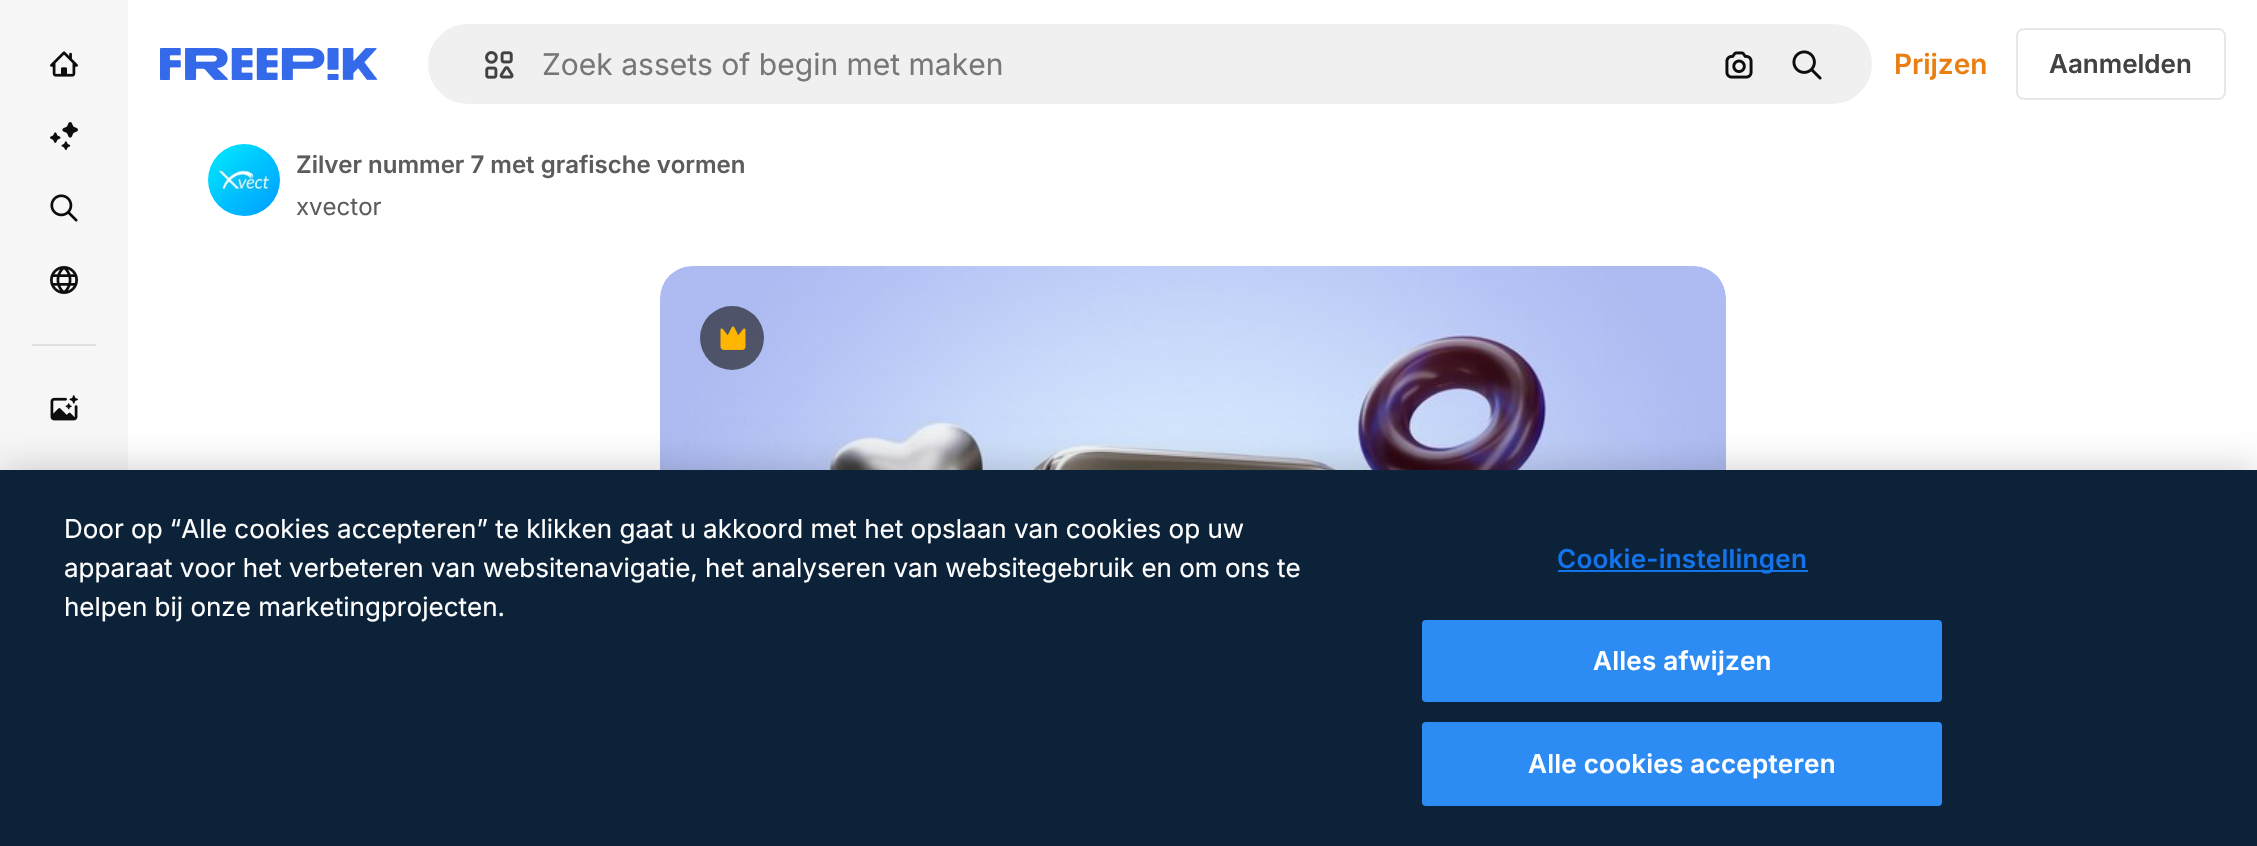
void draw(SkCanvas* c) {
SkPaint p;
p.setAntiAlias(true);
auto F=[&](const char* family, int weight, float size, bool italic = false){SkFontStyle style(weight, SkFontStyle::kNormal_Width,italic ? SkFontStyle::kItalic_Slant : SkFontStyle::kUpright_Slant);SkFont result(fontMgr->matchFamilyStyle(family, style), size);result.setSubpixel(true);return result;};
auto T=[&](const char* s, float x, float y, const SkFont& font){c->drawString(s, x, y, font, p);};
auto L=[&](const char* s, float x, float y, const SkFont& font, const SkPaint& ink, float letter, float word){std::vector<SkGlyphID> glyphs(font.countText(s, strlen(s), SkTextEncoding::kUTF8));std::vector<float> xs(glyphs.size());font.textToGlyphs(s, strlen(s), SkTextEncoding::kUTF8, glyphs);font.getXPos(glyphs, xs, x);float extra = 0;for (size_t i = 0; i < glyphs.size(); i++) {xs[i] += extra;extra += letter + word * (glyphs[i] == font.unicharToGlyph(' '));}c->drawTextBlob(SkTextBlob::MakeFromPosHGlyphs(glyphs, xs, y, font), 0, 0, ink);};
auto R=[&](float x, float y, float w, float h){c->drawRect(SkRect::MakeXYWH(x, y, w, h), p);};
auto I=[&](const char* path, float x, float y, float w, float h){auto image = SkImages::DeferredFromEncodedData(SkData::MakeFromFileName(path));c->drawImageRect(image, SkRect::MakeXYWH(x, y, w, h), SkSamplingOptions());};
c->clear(0xffffffff);
p.setColor(0xfff7f7f7);
R(0,0,128,470);
I("1.png",50,51,28,26);
I("2.png",50,122,28,28);
I("3.png",50,194,28,28);
I("4.png",50,266,28,28);
p.setColor(0xffe0e0e0);
R(32,344,64,2);
I("5.png",50,395,28,26);
I("6.png",160,48,218,32);
p.setColor(0xfff0f0f0);
c->drawRoundRect(SkRect::MakeXYWH(427,23,1446,82),41,41,p);
p.setStroke(true);
p.setStrokeWidth(2);
p.setColor(0xffffffff);
c->drawRoundRect(SkRect::MakeXYWH(427,23,1446,82),41,41,p);
I("7.png",485,51,29,28);
auto f1 = F("Inter",400,30);
p.setStroke(false);
p.setColor(0xff777777);
T("Zoek assets of begin met maken",542,75,f1);
I("8.png",1725,51,28,28);
I("9.png",1792,50,30,30);
auto f2 = F("Inter",600,28);
p.setColor(0xffea7e11);
T("Prijzen",1894,74,f2);
p.setStroke(true);
p.setColor(0xffe7e7e7);
c->drawRoundRect(SkRect::MakeXYWH(2017,29,208,70),7,7,p);
auto f3 = F("Inter",600,26);
p.setStroke(false);
p.setColor(0xff424242);
T("Aanmelden",2049,73,f3);
I("10.png",208,144,72,72);
auto f4 = F("Inter",600,24);
p.setColor(0xff5c5c5c);
T("Zilver nummer 7 met grafische vormen",296,173,f4);
auto f5 = F("Inter",400,24);
T("xvector",296,215,f5);
I("11.png",660,266,1066,204);
p.setColor(0x990d0d0d);
c->drawCircle(732,338,32,p);
I("12.png",720,326,26,24);
p.setColor(0x33000000);
p.setMaskFilter(SkMaskFilter::MakeBlur(kNormal_SkBlurStyle, 18));
c->drawRect(SkRect::MakeXYWH(0,470,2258,376),p);
p.setMaskFilter(nullptr);
p.setColor(0xff0b2239);
R(0,470,2257,376);
auto f6 = F("Inter",400,26);
p.setColor(0xffffffff);
T("Door op “Alle cookies accepteren” te klikken gaat u akkoord met het opslaan van cookies op uw",64,538,f6);
T("apparaat voor het verbeteren van websitenavigatie, het analyseren van websitegebruik en om ons te",64,577,f6);
T("helpen bij onze marketingprojecten.",64,616,f6);
p.setColor(0xff1273eb);
R(1558,570,250,2);
L("Cookie-instellingen",1557,568,f3,p,.25,0);
p.setColor(0xff2c8cf4);
c->drawRoundRect(SkRect::MakeXYWH(1423,621,518,80),3,3,p);
p.setStroke(true);
c->drawRoundRect(SkRect::MakeXYWH(1423,621,518,80),3,3,p);
p.setStroke(false);
p.setColor(0xffffffff);
L("Alles afwijzen",1593,670,f3,p,.25,0);
p.setColor(0xff2c8cf4);
c->drawRoundRect(SkRect::MakeXYWH(1423,723,518,82),3,3,p);
p.setStroke(true);
c->drawRoundRect(SkRect::MakeXYWH(1423,723,518,82),3,3,p);
p.setStroke(false);
p.setColor(0xffffffff);
L("Alle cookies accepteren",1528,773,f3,p,.25,0);
}
